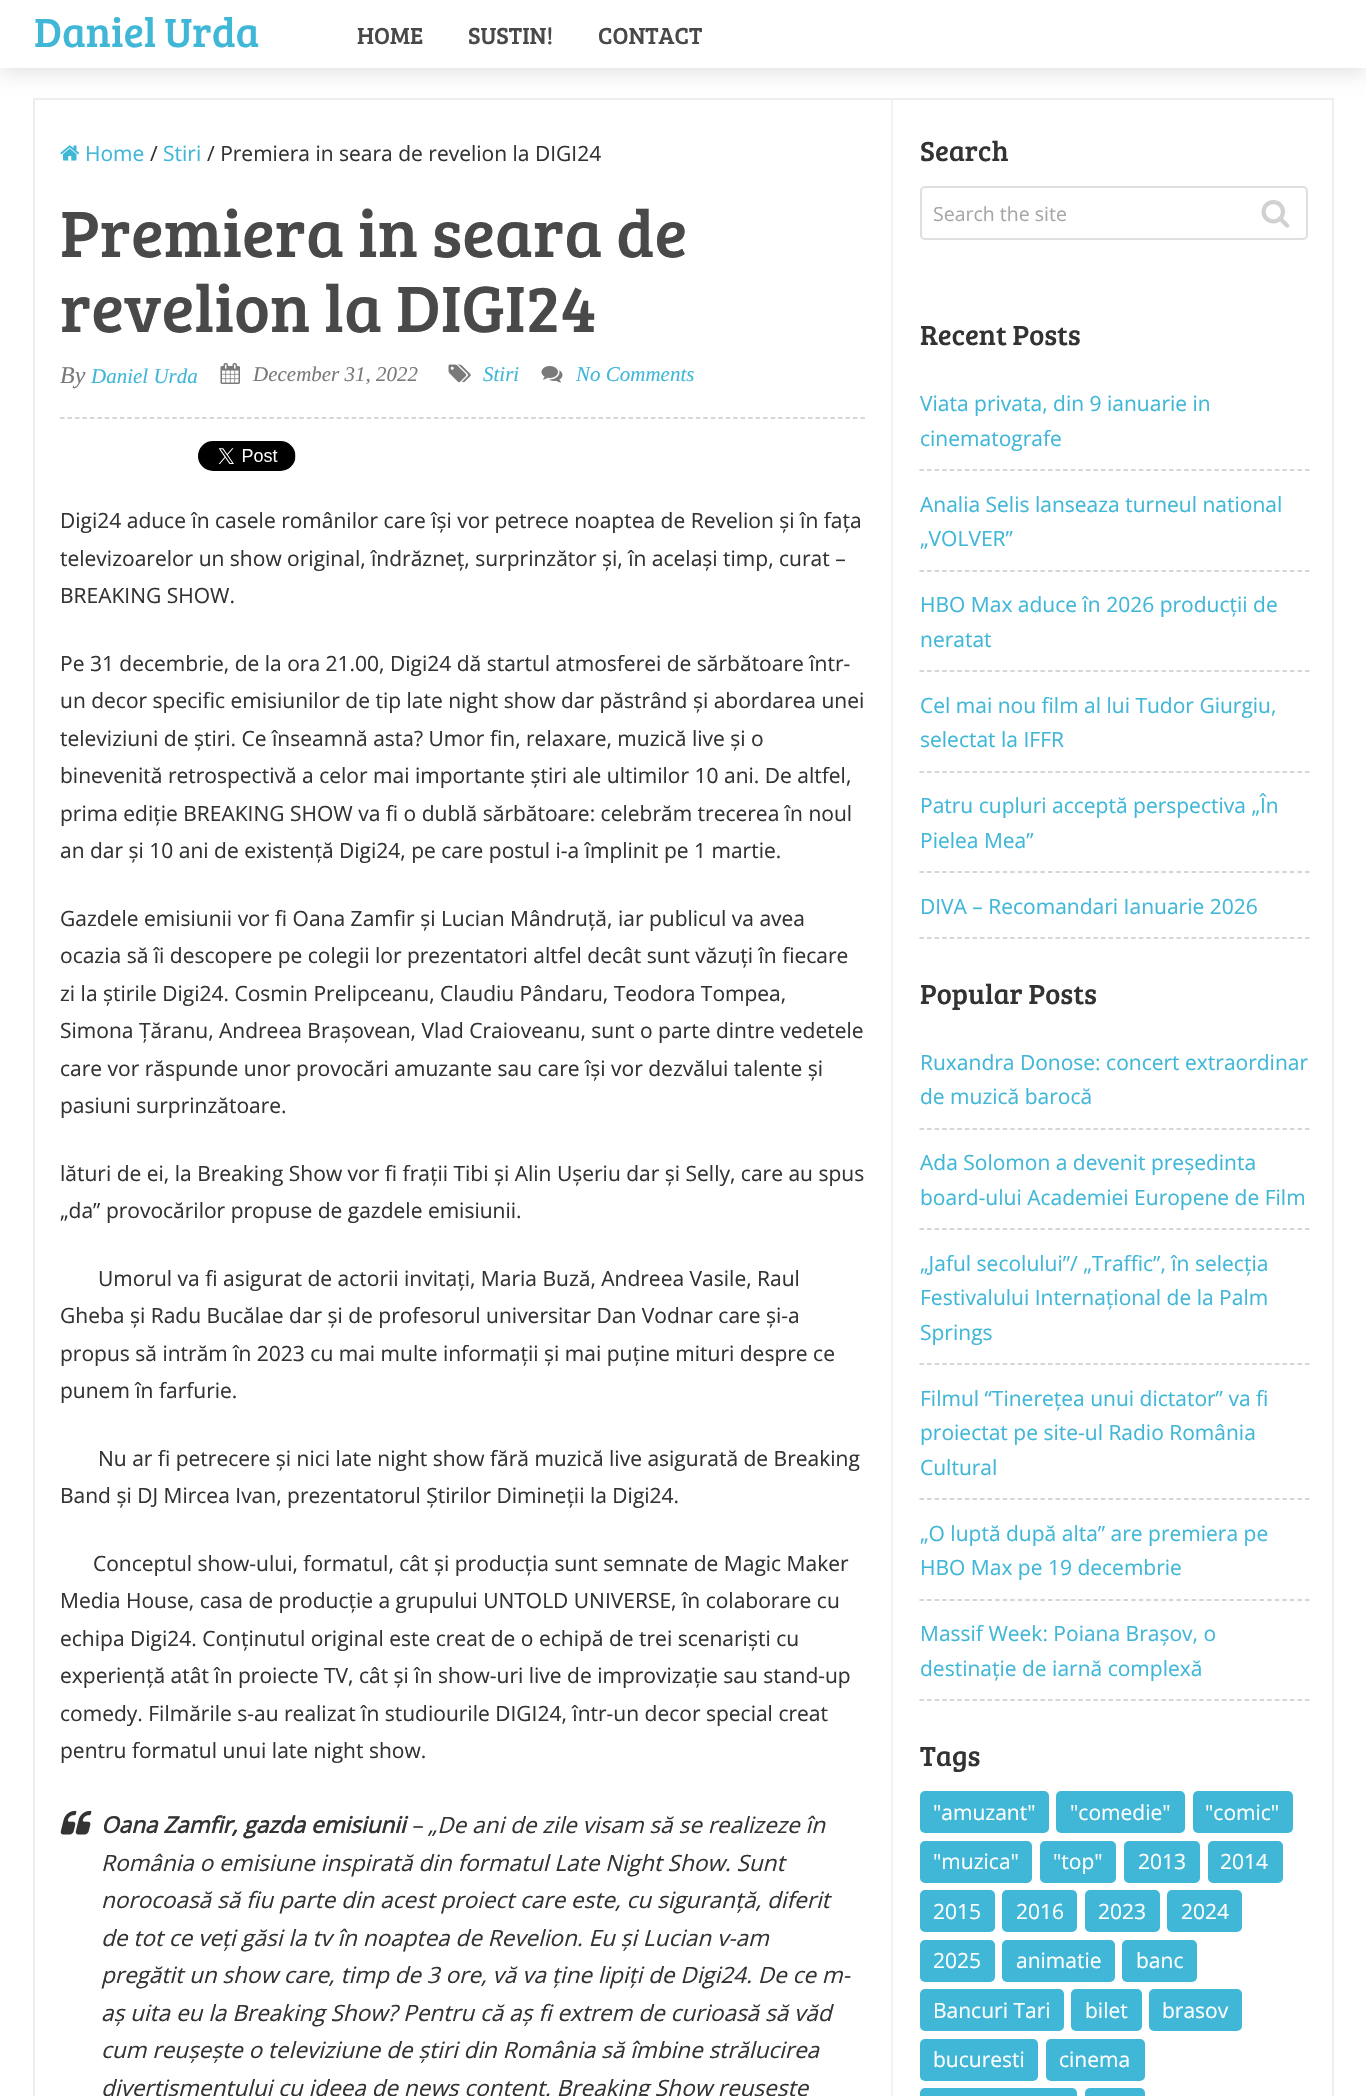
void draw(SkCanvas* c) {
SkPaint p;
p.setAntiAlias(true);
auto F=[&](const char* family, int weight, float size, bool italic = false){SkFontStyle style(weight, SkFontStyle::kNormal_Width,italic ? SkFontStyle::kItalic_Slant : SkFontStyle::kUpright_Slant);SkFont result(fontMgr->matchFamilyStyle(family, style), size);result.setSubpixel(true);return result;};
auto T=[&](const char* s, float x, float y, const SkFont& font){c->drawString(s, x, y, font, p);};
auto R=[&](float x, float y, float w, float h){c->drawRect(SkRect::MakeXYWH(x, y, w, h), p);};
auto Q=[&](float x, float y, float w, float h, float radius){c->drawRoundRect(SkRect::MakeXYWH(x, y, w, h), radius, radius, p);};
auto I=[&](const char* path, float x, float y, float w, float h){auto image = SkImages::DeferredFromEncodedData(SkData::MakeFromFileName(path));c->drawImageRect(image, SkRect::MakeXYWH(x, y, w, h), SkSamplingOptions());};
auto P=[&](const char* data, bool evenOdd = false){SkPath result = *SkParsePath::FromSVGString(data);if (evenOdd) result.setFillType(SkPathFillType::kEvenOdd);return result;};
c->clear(0xffffffff);
p.setStroke(true);
p.setStrokeWidth(2);
p.setColor(0xffeeeeee);
c->drawRect(SkRect::MakeXYWH(34,99,1299,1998),p);
p.setStroke(false);
p.setColor(0xfff2f2f2);
R(891,99,2,1997);
p.setColor(0x21000000);
p.setMaskFilter(SkMaskFilter::MakeBlur(kNormal_SkBlurStyle, 11));
c->drawRect(SkRect::MakeXYWH(0,3,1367,68),p);
p.setMaskFilter(nullptr);
p.setColor(0xffffffff);
R(0,0,1366,68);
auto f1 = F("Bree Serif",400,42);
p.setColor(0xff41b7d8);
T("Daniel Urda",34,47,f1);
auto f2 = F("Bree Serif",400,24);
p.setColor(0xff494949);
T("HOME",357,44,f2);
T("SUSTIN!",468,44,f2);
T("CONTACT",598,44,f2);
I("1.png",60,145,20,16);
auto f3 = F("Open Sans",400,21);
p.setColor(0xff41b7d8);
T("Home",85,161,f3);
p.setColor(0xff333333);
T("/",150,161,f3);
p.setColor(0xff41b7d8);
T("Stiri",163,161,f3);
p.setColor(0xff333333);
T("/ Premiera in seara de revelion la DIGI24",207,161,f3);
auto f4 = F("Bree Serif",400,67.5);
p.setColor(0xff494949);
T("Premiera in seara de",60,257,f4);
T("revelion la DIGI24",60,332,f4);
p.setStroke(true);
p.setStrokeWidth(1.5);
p.setColor(0xffc9c9c9);
p.setPathEffect(SkDashPathEffect::Make({{4.5f,2.98f}}, 0));
c->drawPath(P("M60 418h805.5"),p);
p.setPathEffect(nullptr);
auto f5 = F("Liberation Serif",400,24,true);
p.setStroke(false);
p.setColor(0xff7a7a7a);
T("By",60,383,f5);
auto f6 = F("Liberation Serif",400,21,true);
p.setColor(0xff41b7d8);
T("Daniel Urda",91,383,f6);
I("2.png",220,363,20,21);
p.setColor(0xff7a7a7a);
T("December 31, 2022",253,381,f6);
I("3.png",448,364,23,19);
p.setColor(0xff41b7d8);
T("Stiri",483,381,f6);
I("4.png",541,366,22,17);
T("No Comments",576,381,f6);
I("5.png",198,441,98,30);
p.setColor(0xff333333);
T("Digi24 aduce în casele românilor care își vor petrece noaptea de Revelion și în fața",60,528,f3);
T("televizoarelor un show original, îndrăzneț, surprinzător și, în același timp, curat –",60,566,f3);
T("BREAKING SHOW.",60,603,f3);
T("Pe 31 decembrie, de la ora 21.00, Digi24 dă startul atmosferei de sărbătoare într-",60,671,f3);
T("un decor specific emisiunilor de tip late night show dar păstrând și abordarea unei",60,708,f3);
T("televiziuni de știri. Ce înseamnă asta? Umor fin, relaxare, muzică live și o",60,746,f3);
T("binevenită retrospectivă a celor mai importante știri ale ultimilor 10 ani. De altfel,",60,783,f3);
T("prima ediție BREAKING SHOW va fi o dublă sărbătoare: celebrăm trecerea în noul",60,821,f3);
T("an dar și 10 ani de existență Digi24, pe care postul i-a împlinit pe 1 martie.",60,858,f3);
T("Gazdele emisiunii vor fi Oana Zamfir și Lucian Mândruță, iar publicul va avea",60,926,f3);
T("ocazia să îi descopere pe colegii lor prezentatori altfel decât sunt văzuți în fiecare",60,963,f3);
T("zi la știrile Digi24. Cosmin Prelipceanu, Claudiu Pândaru, Teodora Tompea,",60,1001,f3);
T("Simona Țăranu, Andreea Brașovean, Vlad Craioveanu, sunt o parte dintre vedetele",60,1038,f3);
T("care vor răspunde unor provocări amuzante sau care își vor dezvălui talente și",60,1076,f3);
T("pasiuni surprinzătoare.",60,1113,f3);
T("lături de ei, la Breaking Show vor fi frații Tibi și Alin Ușeriu dar și Selly, care au spus",60,1181,f3);
T("„da” provocărilor propuse de gazdele emisiunii.",60,1218,f3);
T("Umorul va fi asigurat de actorii invitați, Maria Buză, Andreea Vasile, Raul",98,1286,f3);
T("Gheba și Radu Bucălae dar și de profesorul universitar Dan Vodnar care și-a",60,1323,f3);
T("propus să intrăm în 2023 cu mai multe informații și mai puține mituri despre ce",60,1361,f3);
T("punem în farfurie.",60,1398,f3);
T("Nu ar fi petrecere și nici late night show fără muzică live asigurată de Breaking",98,1466,f3);
T("Band și DJ Mircea Ivan, prezentatorul Știrilor Dimineții la Digi24.",60,1503,f3);
T("Conceptul show-ului, formatul, cât și producția sunt semnate de Magic Maker",93,1571,f3);
T("Media House, casa de producție a grupului UNTOLD UNIVERSE, în colaborare cu",60,1608,f3);
T("echipa Digi24. Conținutul original este creat de o echipă de trei scenariști cu",60,1646,f3);
T("experiență atât în proiecte TV, cât și în show-uri live de improvizație sau stand-up",60,1683,f3);
T("comedy. Filmările s-au realizat în studiourile DIGI24, într-un decor special creat",60,1721,f3);
T("pentru formatul unui late night show.",60,1758,f3);
I("6.png",60,1810,32,25);
auto f7 = F("Open Sans",700,22.5,true);
T("Oana Zamfir, gazda emisiunii",101,1833,f7);
auto f8 = F("Open Sans",400,22.5,true);
T("– „De ani de zile visam să se realizeze în",411,1833,f8);
T("România o emisiune inspirată din formatul Late Night Show. Sunt",101,1871,f8);
T("norocoasă să fiu parte din acest proiect care este, cu siguranță, diferit",101,1908,f8);
T("de tot ce veți găsi la tv în noaptea de Revelion. Eu și Lucian v-am",101,1946,f8);
T("pregătit un show care, timp de 3 ore, vă va ține lipiți de Digi24. De ce m-",101,1983,f8);
T("aș uita eu la Breaking Show? Pentru că aș fi extrem de curioasă să văd",101,2021,f8);
T("cum reușește o televiziune de știri din România să îmbine strălucirea",101,2058,f8);
T("divertismentului cu ideea de news content. Breaking Show reușește",101,2096,f8);
auto f9 = F("Bree Serif",400,28.5);
T("Search",920,161,f9);
p.setStroke(true);
p.setStrokeWidth(2);
p.setColor(0xffdfdfdf);
c->drawRoundRect(SkRect::MakeXYWH(921,187,386,52),4,4,p);
auto f10 = F("Open Sans",400,19.5);
p.setStroke(false);
p.setColor(0xffa7a7a7);
T("Search the site",933,221,f10);
I("7.png",1261,200,29,28);
p.setColor(0xff333333);
T("Recent Posts",920,345,f9);
p.setStroke(true);
p.setStrokeWidth(1.5);
p.setColor(0xffc9c9c9);
p.setPathEffect(SkDashPathEffect::Make({{4.5f,3.06f}}, 0));
c->drawPath(P("M919.5 470h390"),p);
p.setPathEffect(nullptr);
p.setStroke(false);
p.setColor(0xff41b7d8);
T("Viata privata, din 9 ianuarie in",920,411,f3);
T("cinematografe",920,446,f3);
p.setStroke(true);
p.setColor(0xffc9c9c9);
p.setPathEffect(SkDashPathEffect::Make({{4.5f,3.06f}}, 0));
c->drawPath(P("M919.5 571h390"),p);
p.setPathEffect(nullptr);
p.setStroke(false);
p.setColor(0xff41b7d8);
T("Analia Selis lanseaza turneul national",920,512,f3);
T("„VOLVER”",920,546,f3);
p.setStroke(true);
p.setColor(0xffc9c9c9);
p.setPathEffect(SkDashPathEffect::Make({{4.5f,3.06f}}, 0));
c->drawPath(P("M919.5 671h390"),p);
p.setPathEffect(nullptr);
p.setStroke(false);
p.setColor(0xff41b7d8);
T("HBO Max aduce în 2026 producții de",920,612,f3);
T("neratat",920,647,f3);
p.setStroke(true);
p.setColor(0xffc9c9c9);
p.setPathEffect(SkDashPathEffect::Make({{4.5f,3.06f}}, 0));
c->drawPath(P("M919.5 772h390"),p);
p.setPathEffect(nullptr);
p.setStroke(false);
p.setColor(0xff41b7d8);
T("Cel mai nou film al lui Tudor Giurgiu,",920,713,f3);
T("selectat la IFFR",920,747,f3);
p.setStroke(true);
p.setColor(0xffc9c9c9);
p.setPathEffect(SkDashPathEffect::Make({{4.5f,3.06f}}, 0));
c->drawPath(P("M919.5 872h390"),p);
p.setPathEffect(nullptr);
p.setStroke(false);
p.setColor(0xff41b7d8);
T("Patru cupluri acceptă perspectiva „În",920,813,f3);
T("Pielea Mea”",920,848,f3);
p.setStroke(true);
p.setColor(0xffc9c9c9);
p.setPathEffect(SkDashPathEffect::Make({{4.5f,3.06f}}, 0));
c->drawPath(P("M919.5 938h390"),p);
p.setPathEffect(nullptr);
p.setStroke(false);
p.setColor(0xff41b7d8);
T("DIVA – Recomandari Ianuarie 2026",920,914,f3);
p.setColor(0xff333333);
T("Popular Posts",920,1004,f9);
p.setStroke(true);
p.setColor(0xffc9c9c9);
p.setPathEffect(SkDashPathEffect::Make({{4.5f,3.06f}}, 0));
c->drawPath(P("M919.5 1129h390"),p);
p.setPathEffect(nullptr);
p.setStroke(false);
p.setColor(0xff41b7d8);
T("Ruxandra Donose: concert extraordinar",920,1070,f3);
T("de muzică barocă",920,1104,f3);
p.setStroke(true);
p.setColor(0xffc9c9c9);
p.setPathEffect(SkDashPathEffect::Make({{4.5f,3.06f}}, 0));
c->drawPath(P("M919.5 1229h390"),p);
p.setPathEffect(nullptr);
p.setStroke(false);
p.setColor(0xff41b7d8);
T("Ada Solomon a devenit președinta",920,1170,f3);
T("board-ului Academiei Europene de Film",920,1205,f3);
p.setStroke(true);
p.setColor(0xffc9c9c9);
p.setPathEffect(SkDashPathEffect::Make({{4.5f,3.06f}}, 0));
c->drawPath(P("M919.5 1364h390"),p);
p.setPathEffect(nullptr);
p.setStroke(false);
p.setColor(0xff41b7d8);
T("„Jaful secolului”/ „Traffic”, în selecția",920,1271,f3);
T("Festivalului Internațional de la Palm",920,1305,f3);
T("Springs",920,1340,f3);
p.setStroke(true);
p.setColor(0xffc9c9c9);
p.setPathEffect(SkDashPathEffect::Make({{4.5f,3.06f}}, 0));
c->drawPath(P("M919.5 1499h390"),p);
p.setPathEffect(nullptr);
p.setStroke(false);
p.setColor(0xff41b7d8);
T("Filmul “Tinerețea unui dictator” va fi",920,1406,f3);
T("proiectat pe site-ul Radio România",920,1440,f3);
T("Cultural",920,1475,f3);
p.setStroke(true);
p.setColor(0xffc9c9c9);
p.setPathEffect(SkDashPathEffect::Make({{4.5f,3.06f}}, 0));
c->drawPath(P("M919.5 1600h390"),p);
p.setPathEffect(nullptr);
p.setStroke(false);
p.setColor(0xff41b7d8);
T("„O luptă după alta” are premiera pe",920,1541,f3);
T("HBO Max pe 19 decembrie",920,1575,f3);
p.setStroke(true);
p.setColor(0xffc9c9c9);
p.setPathEffect(SkDashPathEffect::Make({{4.5f,3.06f}}, 0));
c->drawPath(P("M919.5 1700h390"),p);
p.setPathEffect(nullptr);
p.setStroke(false);
p.setColor(0xff41b7d8);
T("Massif Week: Poiana Brașov, o",920,1641,f3);
T("destinație de iarnă complexă",920,1676,f3);
p.setColor(0xff333333);
T("Tags",920,1766,f9);
p.setColor(0xff41b7d8);
Q(920,1791,129,42,5);
p.setColor(0xffffffff);
T("\"amuzant\"",933,1820,f3);
p.setColor(0xff41b7d8);
Q(1056,1791,129,42,5);
p.setColor(0xffffffff);
T("\"comedie\"",1070,1820,f3);
p.setColor(0xff41b7d8);
Q(1193,1791,100,42,5);
p.setColor(0xffffffff);
T("\"comic\"",1205,1820,f3);
p.setColor(0xff41b7d8);
Q(920,1841,112,42,5);
p.setColor(0xffffffff);
T("\"muzica\"",933,1869,f3);
p.setColor(0xff41b7d8);
Q(1040,1841,76,42,5);
p.setColor(0xffffffff);
T("\"top\"",1053,1869,f3);
p.setColor(0xff41b7d8);
Q(1124,1841,76,42,5);
p.setColor(0xffffffff);
T("2013",1138,1869,f3);
p.setColor(0xff41b7d8);
Q(1208,1841,75,42,5);
p.setColor(0xffffffff);
T("2014",1220,1869,f3);
p.setColor(0xff41b7d8);
Q(920,1890,75,42,5);
p.setColor(0xffffffff);
T("2015",933,1919,f3);
p.setColor(0xff41b7d8);
Q(1002,1890,75,42,5);
p.setColor(0xffffffff);
T("2016",1016,1919,f3);
p.setColor(0xff41b7d8);
Q(1085,1890,75,42,5);
p.setColor(0xffffffff);
T("2023",1098,1919,f3);
p.setColor(0xff41b7d8);
Q(1167,1890,75,42,5);
p.setColor(0xffffffff);
T("2024",1181,1919,f3);
p.setColor(0xff41b7d8);
Q(920,1940,75,42,5);
p.setColor(0xffffffff);
T("2025",933,1968,f3);
p.setColor(0xff41b7d8);
Q(1002,1940,113,42,5);
p.setColor(0xffffffff);
T("animatie",1016,1968,f3);
p.setColor(0xff41b7d8);
Q(1122,1940,75,42,5);
p.setColor(0xffffffff);
T("banc",1136,1968,f3);
p.setColor(0xff41b7d8);
Q(920,1989,144,42,5);
p.setColor(0xffffffff);
T("Bancuri Tari",933,2018,f3);
p.setColor(0xff41b7d8);
Q(1071,1989,71,42,5);
p.setColor(0xffffffff);
T("bilet",1085,2018,f3);
p.setColor(0xff41b7d8);
Q(1149,1989,93,42,5);
p.setColor(0xffffffff);
T("brasov",1162,2018,f3);
p.setColor(0xff41b7d8);
Q(920,2039,118,42,5);
p.setColor(0xffffffff);
T("bucuresti",933,2067,f3);
p.setColor(0xff41b7d8);
Q(1046,2039,99,42,5);
p.setColor(0xffffffff);
T("cinema",1059,2067,f3);
p.setColor(0xff41b7d8);
Q(920,2088,157,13,5);
Q(1085,2088,60,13,5);
}
